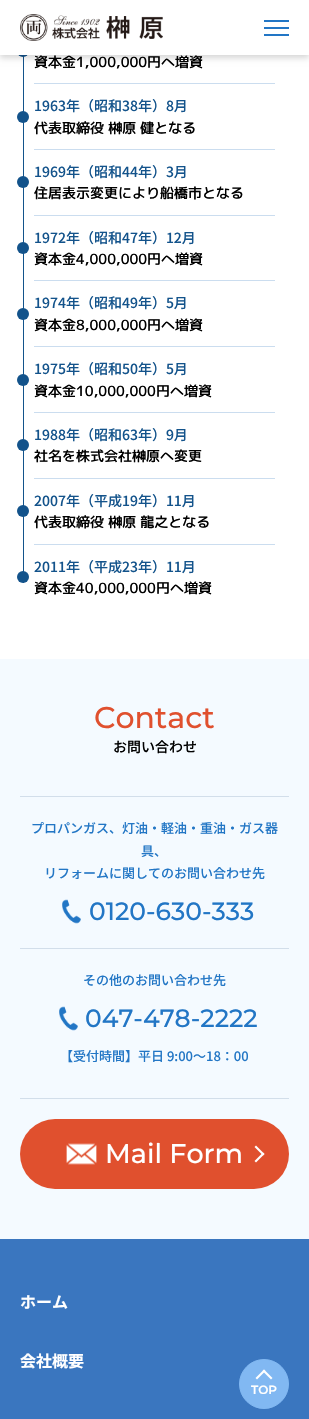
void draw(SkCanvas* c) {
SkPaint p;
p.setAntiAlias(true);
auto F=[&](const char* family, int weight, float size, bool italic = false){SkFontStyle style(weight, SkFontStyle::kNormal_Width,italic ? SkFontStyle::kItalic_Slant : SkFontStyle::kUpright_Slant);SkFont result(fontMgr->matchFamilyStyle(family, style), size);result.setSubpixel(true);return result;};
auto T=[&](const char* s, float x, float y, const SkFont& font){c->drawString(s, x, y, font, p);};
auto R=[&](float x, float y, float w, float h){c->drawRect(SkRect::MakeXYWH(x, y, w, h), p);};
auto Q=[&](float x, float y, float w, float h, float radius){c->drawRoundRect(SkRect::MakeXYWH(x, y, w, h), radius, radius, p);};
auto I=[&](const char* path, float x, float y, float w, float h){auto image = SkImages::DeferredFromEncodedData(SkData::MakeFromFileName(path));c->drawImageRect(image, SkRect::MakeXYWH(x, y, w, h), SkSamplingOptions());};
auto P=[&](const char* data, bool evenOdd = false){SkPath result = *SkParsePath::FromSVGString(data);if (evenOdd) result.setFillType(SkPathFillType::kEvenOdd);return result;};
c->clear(0xffffffff);
p.setColor(0xff13538b);
c->drawCircle(23,51,6,p);
R(23,51,1,61);
p.setColor(0x29000000);
p.setMaskFilter(SkMaskFilter::MakeBlur(kNormal_SkBlurStyle, 3));
c->drawRect(SkRect::MakeXYWH(0,3,309,55),p);
p.setMaskFilter(nullptr);
p.setColor(0xffffffff);
R(0,0,309,55);
I("1.png",20,14,143,27);
p.setColor(0xff2276c5);
R(264,20,25,2);
R(264,27,25,2);
R(264,34,25,2);
p.setColor(0xffcbddef);
R(34,83,241,1);
auto f1 = F("M PLUS 1p",500,14);
p.setColor(0xff000000);
T("資本金1,000,000円へ増資",34,67,f1);
p.setColor(0xffcbddef);
R(34,149,241,1);
auto f2 = F("Noto Sans JP",500,14);
p.setColor(0xff13538b);
T("1963年（昭和38年）8月",34,111,f2);
c->drawCircle(23,117,6,p);
R(23,117,1,60);
p.setColor(0xff000000);
T("代表取締役 榊原 健となる",34,133,f1);
p.setColor(0xffcbddef);
R(34,215,241,1);
p.setColor(0xff13538b);
T("1969年（昭和44年）3月",34,177,f2);
c->drawCircle(23,182,6,p);
R(23,182,1,61);
p.setColor(0xff000000);
T("住居表示変更により船橋市となる",34,198,f1);
p.setColor(0xffcbddef);
R(34,280,241,1);
p.setColor(0xff13538b);
T("1972年（昭和47年）12月",34,243,f2);
c->drawCircle(23,248,6,p);
R(23,248,1,61);
p.setColor(0xff000000);
T("資本金4,000,000円へ増資",34,264,f1);
p.setColor(0xffcbddef);
R(34,346,241,1);
p.setColor(0xff13538b);
T("1974年（昭和49年）5月",34,308,f2);
c->drawCircle(23,314,6,p);
R(23,314,1,61);
p.setColor(0xff000000);
T("資本金8,000,000円へ増資",34,330,f1);
p.setColor(0xffcbddef);
R(34,412,241,1);
p.setColor(0xff13538b);
T("1975年（昭和50年）5月",34,374,f2);
c->drawCircle(23,380,6,p);
R(23,380,1,60);
p.setColor(0xff000000);
T("資本金10,000,000円へ増資",34,396,f1);
p.setColor(0xffcbddef);
R(34,478,241,1);
p.setColor(0xff13538b);
T("1988年（昭和63年）9月",34,440,f2);
c->drawCircle(23,445,6,p);
R(23,445,1,61);
p.setColor(0xff000000);
T("社名を株式会社榊原へ変更",34,461,f1);
p.setColor(0xffcbddef);
R(34,544,241,1);
p.setColor(0xff13538b);
T("2007年（平成19年）11月",34,506,f2);
c->drawCircle(23,511,6,p);
R(23,511,1,72);
p.setColor(0xff000000);
T("代表取締役 榊原 龍之となる",34,527,f1);
p.setColor(0xff13538b);
T("2011年（平成23年）11月",34,572,f2);
c->drawCircle(23,577,6,p);
p.setColor(0xff000000);
T("資本金40,000,000円へ増資",34,593,f1);
p.setColor(0xfff4faff);
R(0,659,309,580);
auto f3 = F("Montserrat",500,30);
p.setColor(0xffe0502e);
T("Contact",94,728,f3);
p.setColor(0xff000000);
T("お問い合わせ",113,752,f2);
p.setColor(0xffd2deea);
R(20,796,269,1);
auto f4 = F("Noto Sans JP",500,13);
p.setColor(0xff2276c5);
T("プロパンガス、灯油・軽油・重油・ガス器",31,833,f4);
T("具、",141,856,f4);
T("リフォームに関してのお問い合わせ先",44,878,f4);
I("2.png",62,899,19,25);
auto f5 = F("Montserrat",500,25);
T("0120-630-333",89,920,f5);
p.setColor(0xffd2deea);
R(20,948,269,1);
p.setColor(0xff2276c5);
T("その他のお問い合わせ先",83,985,f4);
I("2.png",59,1006,19,25);
T("047-478-2222",85,1027,f5);
T("【受付時間】平日 9:00～18：00",60,1061,f4);
p.setColor(0xffd2deea);
R(20,1098,269,1);
p.setColor(0xffe0502e);
Q(20,1119,269,70,35);
I("3.png",66,1143,31,22);
auto f6 = F("Montserrat",500,27);
p.setColor(0xffffffff);
T("Mail Form",105,1163,f6);
c->drawPath(P("M256 1145.5l8.5 8.5l-1.5 1.5l-8.5-8.5z"),p);
c->drawPath(P("M263 1152.5l1.5 1.5l-8.5 8.5l-1.5-1.5z"),p);
p.setColor(0xff3a76bf);
R(0,1239,309,180);
auto f7 = F("Noto Sans JP",700,16);
p.setColor(0xffffffff);
T("ホーム",20,1308,f7);
T("会社概要",20,1367,f7);
p.setColor(0xff81b8f2);
c->drawCircle(264,1384,24.5,p);
p.setStroke(true);
p.setStrokeWidth(1);
c->drawCircle(264,1384,24.5,p);
p.setStroke(false);
p.setColor(0xffffffff);
c->drawPath(P("M264 1369.5l8.5 8.5l-1.5 1.5l-8.5-8.5z"),p);
c->drawPath(P("M264 1369.5l1.5 1.5l-8.5 8.5l-1.5-1.5z"),p);
auto f8 = F("Montserrat",600,12);
T("TOP",251,1394,f8);
}
